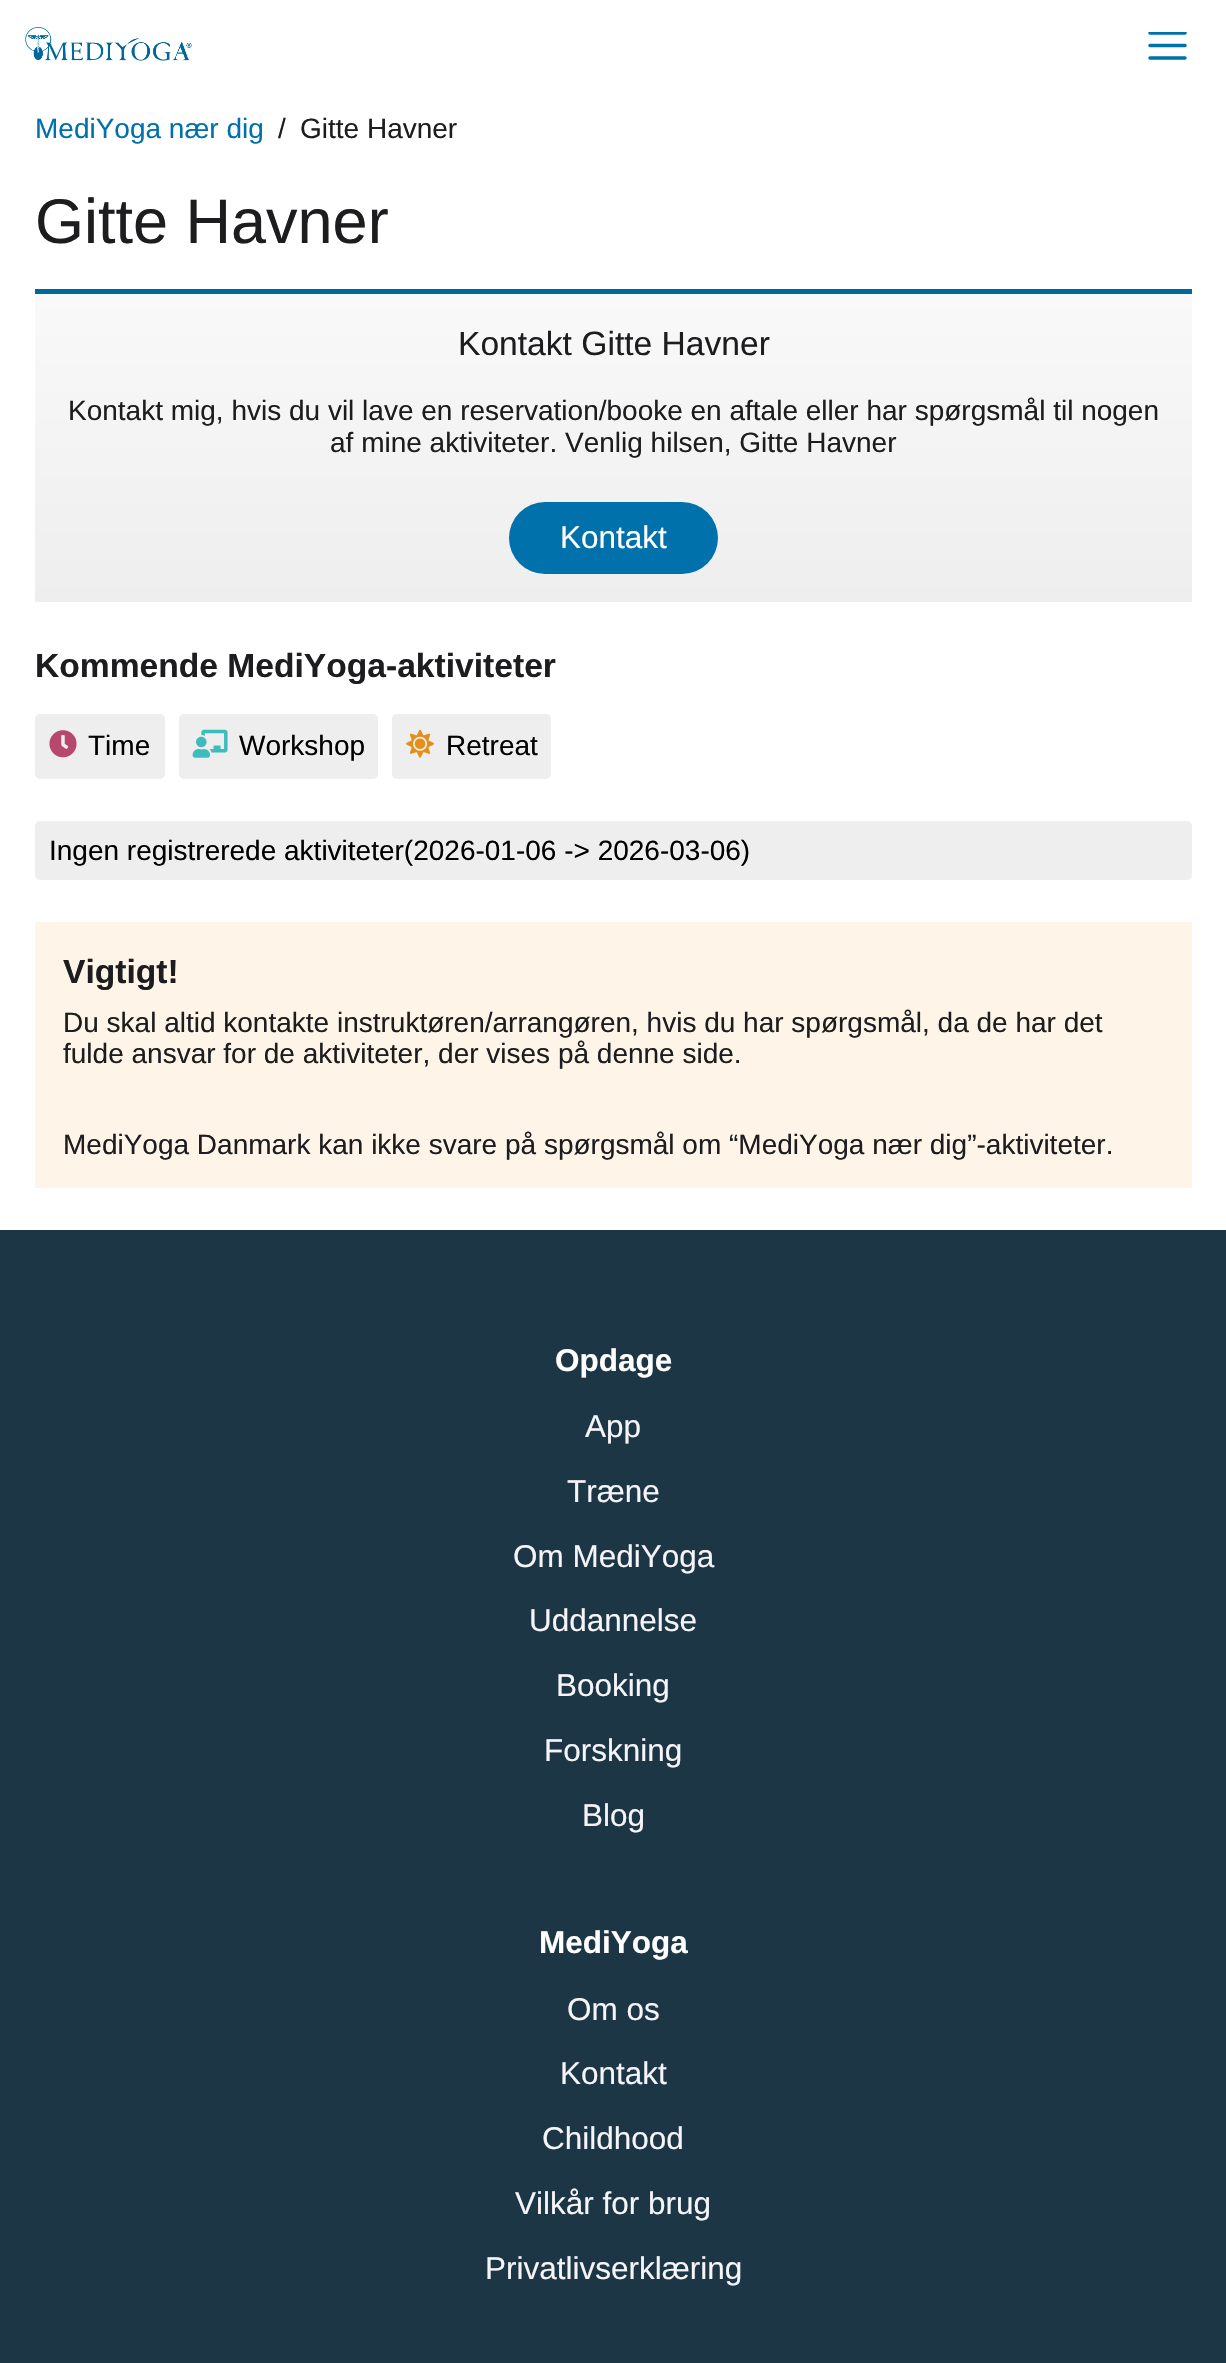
void draw(SkCanvas* c) {
SkPaint p;
p.setAntiAlias(true);
auto F=[&](const char* family, int weight, float size, bool italic = false){SkFontStyle style(weight, SkFontStyle::kNormal_Width,italic ? SkFontStyle::kItalic_Slant : SkFontStyle::kUpright_Slant);SkFont result(fontMgr->matchFamilyStyle(family, style), size);result.setSubpixel(true);return result;};
auto T=[&](const char* s, float x, float y, const SkFont& font){c->drawString(s, x, y, font, p);};
auto R=[&](float x, float y, float w, float h){c->drawRect(SkRect::MakeXYWH(x, y, w, h), p);};
auto Q=[&](float x, float y, float w, float h, float radius){c->drawRoundRect(SkRect::MakeXYWH(x, y, w, h), radius, radius, p);};
auto I=[&](const char* path, float x, float y, float w, float h){auto image = SkImages::DeferredFromEncodedData(SkData::MakeFromFileName(path));c->drawImageRect(image, SkRect::MakeXYWH(x, y, w, h), SkSamplingOptions());};
auto P=[&](const char* data, bool evenOdd = false){SkPath result = *SkParsePath::FromSVGString(data);if (evenOdd) result.setFillType(SkPathFillType::kEvenOdd);return result;};
c->clear(0xffffffff);
I("1.png",25,27,167,34);
c->save();
c->clipRect(SkRect::MakeXYWH(1148,32,39,28));
p.setStroke(true);
p.setStrokeWidth(3.5);
p.setStrokeCap(SkPaint::kRound_Cap);
p.setColor(0xff0071aa);
c->drawPath(P("M1150 33h35"),p);
c->restore();
c->drawPath(P("M1150 45.5h35m-35 12.5h35"),p);
auto f1 = F("Liberation Sans",400,28);
p.setStroke(false);
T("MediYoga nær dig",35,138,f1);
p.setColor(0xff1d1d1f);
T("/",278,138,f1);
T("Gitte Havner",300,138,f1);
auto f2 = F("Liberation Sans",400,63);
T("Gitte Havner",35,243,f2);
{
const SkColor colors[] = {0xfff9f9fa,0xffeeeeee};
const float stops[] = {0,1};
const SkPoint ends[] = {{613,294}, {613,602}};
p.setShader(SkGradientShader::MakeLinear(ends, colors, stops, 2, SkTileMode::kClamp));
p.setAlpha(255);
}
R(35,294,1157,308);
p.setShader(nullptr);
p.setColor(0xff00679a);
R(35,289,1157,5);
auto f3 = F("Liberation Sans",400,33.6);
p.setColor(0xff1d1d1f);
T("Kontakt Gitte Havner",458,355,f3);
T("Kontakt mig, hvis du vil lave en reservation/booke en aftale eller har spørgsmål til nogen",68,420,f1);
T("af mine aktiviteter. Venlig hilsen, Gitte Havner",330,452,f1);
p.setColor(0xff0071aa);
Q(509,502,209,72,36);
auto f4 = F("Liberation Sans",400,31.5);
p.setColor(0xffffffff);
T("Kontakt",560,548,f4);
auto f5 = F("Liberation Sans",700,33.6);
p.setColor(0xff1d1d1f);
T("Kommende MediYoga-aktiviteter",35,677,f5);
p.setColor(0xffeeeeee);
Q(35,714,130,65,5);
I("2.png",49,730,28,28);
p.setColor(0xff000000);
T("Time",88,755,f1);
p.setColor(0xffeeeeee);
Q(179,714,199,65,5);
I("3.png",192,729,36,29);
p.setColor(0xff000000);
T("Workshop",239,755,f1);
p.setColor(0xffeeeeee);
Q(392,714,159,65,5);
I("4.png",406,729,28,29);
p.setColor(0xff000000);
T("Retreat",446,755,f1);
p.setColor(0xffeeeeee);
Q(35,821,1157,59,5);
p.setColor(0xff000000);
T("Ingen registrerede aktiviteter(2026-01-06 -> 2026-03-06)",49,860,f1);
p.setColor(0xfffef4e8);
R(35,922,1157,266);
p.setColor(0xff1d1d1f);
T("Vigtigt!",63,983,f5);
T("Du skal altid kontakte instruktøren/arrangøren, hvis du har spørgsmål, da de har det",63,1032,f1);
T("fulde ansvar for de aktiviteter, der vises på denne side.",63,1063,f1);
T("MediYoga Danmark kan ikke svare på spørgsmål om “MediYoga nær dig”-aktiviteter.",63,1154,f1);
p.setColor(0xff1c3645);
R(0,1230,1226,1133);
auto f6 = F("Liberation Sans",700,31.5);
p.setColor(0xffffffff);
T("Opdage",555,1371,f6);
p.setColor(0xfff5f5f9);
T("App",585,1437,f4);
T("Træne",567,1502,f4);
T("Om MediYoga",513,1567,f4);
T("Uddannelse",529,1631,f4);
T("Booking",556,1696,f4);
T("Forskning",544,1761,f4);
T("Blog",582,1826,f4);
p.setColor(0xffffffff);
T("MediYoga",539,1953,f6);
p.setColor(0xfff5f5f9);
T("Om os",567,2020,f4);
T("Kontakt",560,2084,f4);
T("Childhood",542,2149,f4);
T("Vilkår for brug",515,2214,f4);
T("Privatlivserklæring",485,2279,f4);
}
